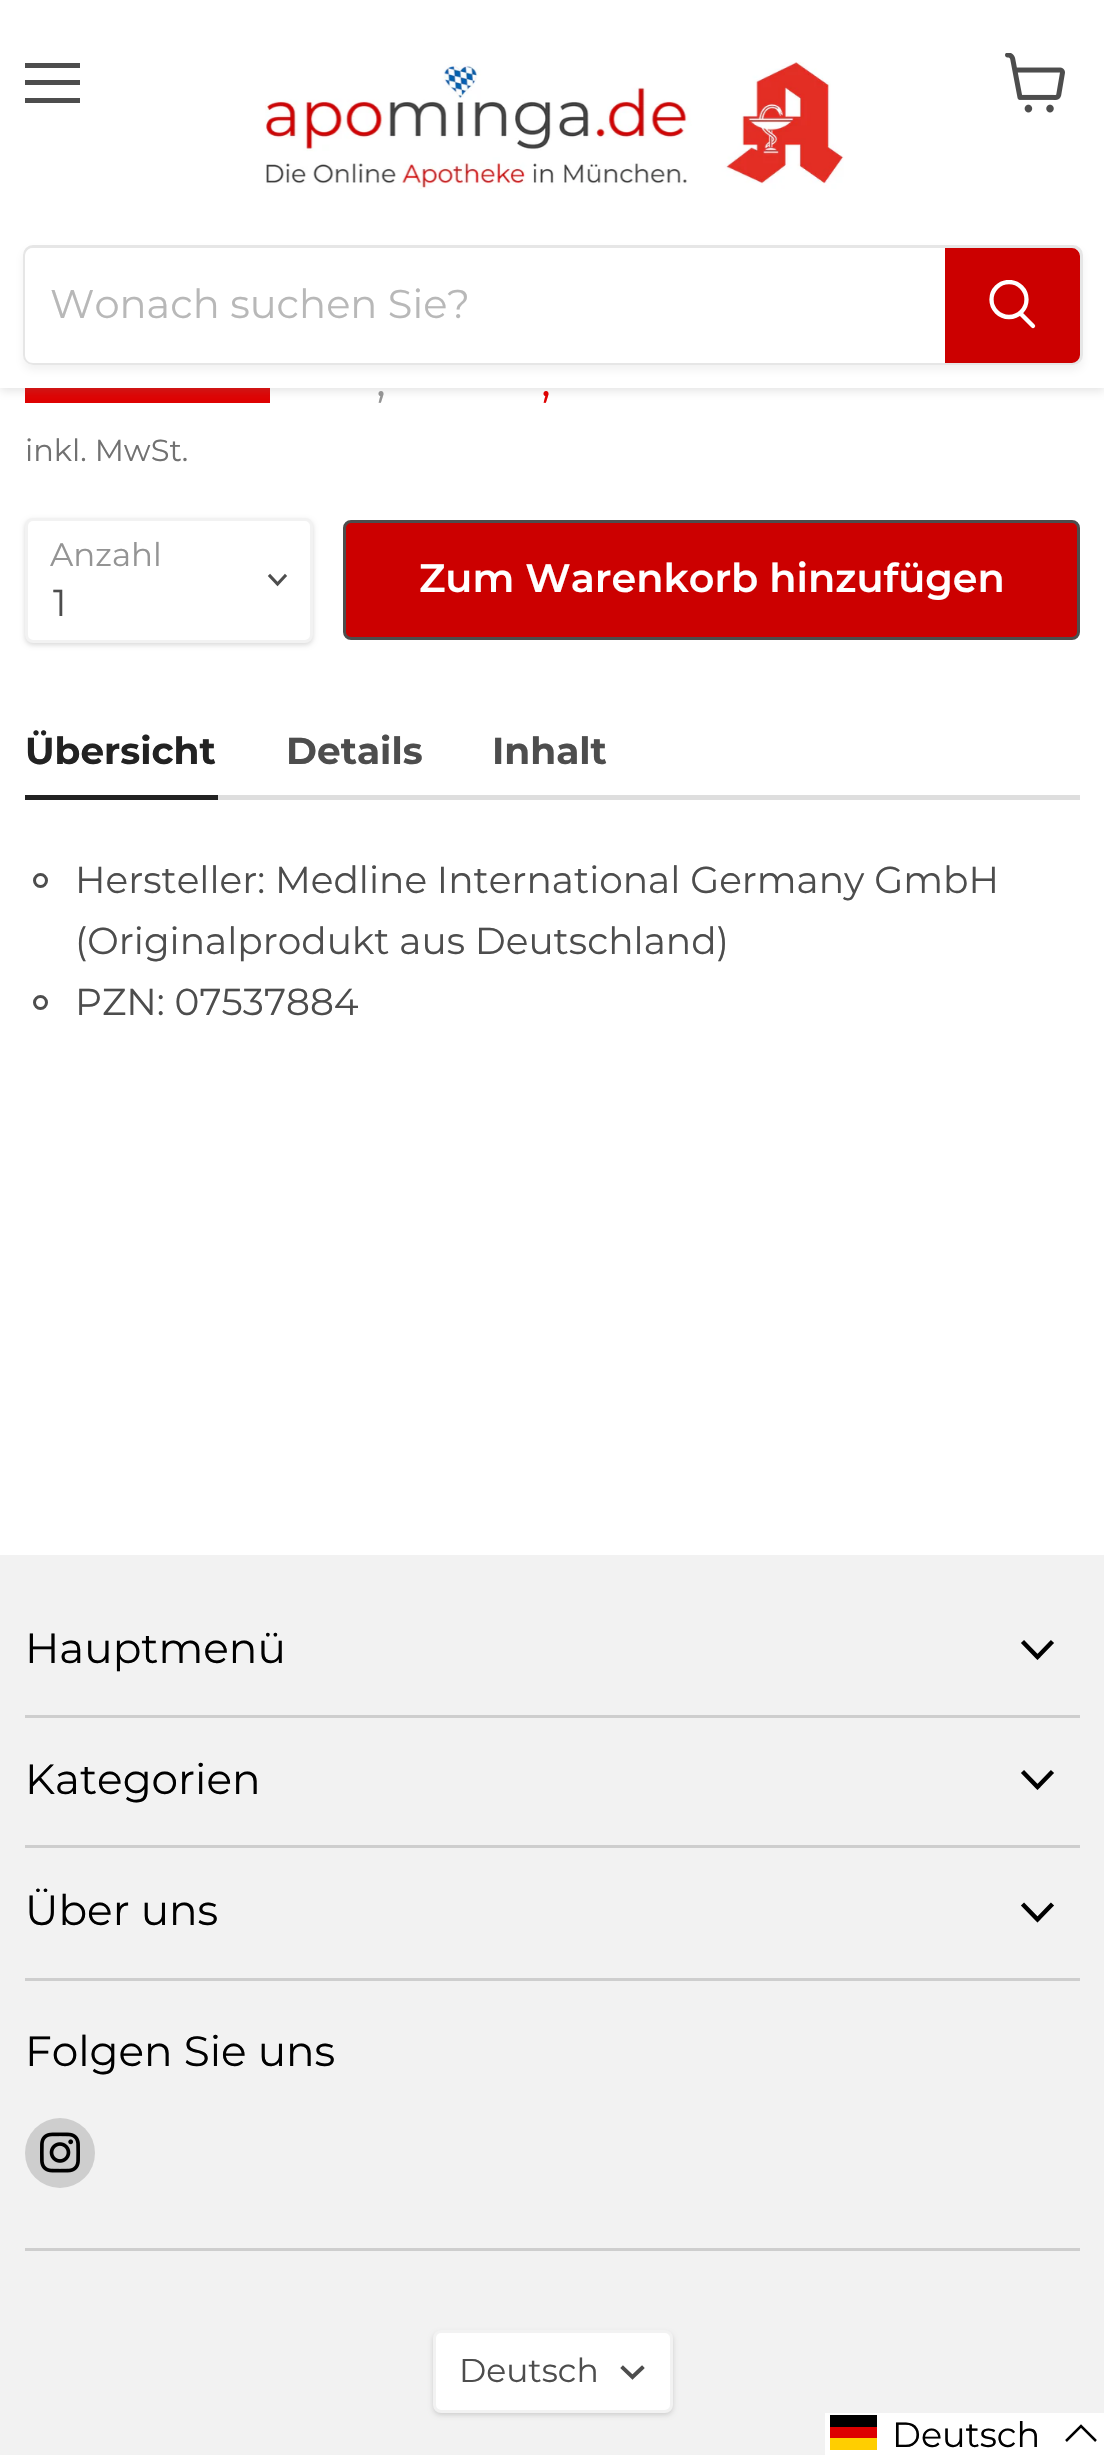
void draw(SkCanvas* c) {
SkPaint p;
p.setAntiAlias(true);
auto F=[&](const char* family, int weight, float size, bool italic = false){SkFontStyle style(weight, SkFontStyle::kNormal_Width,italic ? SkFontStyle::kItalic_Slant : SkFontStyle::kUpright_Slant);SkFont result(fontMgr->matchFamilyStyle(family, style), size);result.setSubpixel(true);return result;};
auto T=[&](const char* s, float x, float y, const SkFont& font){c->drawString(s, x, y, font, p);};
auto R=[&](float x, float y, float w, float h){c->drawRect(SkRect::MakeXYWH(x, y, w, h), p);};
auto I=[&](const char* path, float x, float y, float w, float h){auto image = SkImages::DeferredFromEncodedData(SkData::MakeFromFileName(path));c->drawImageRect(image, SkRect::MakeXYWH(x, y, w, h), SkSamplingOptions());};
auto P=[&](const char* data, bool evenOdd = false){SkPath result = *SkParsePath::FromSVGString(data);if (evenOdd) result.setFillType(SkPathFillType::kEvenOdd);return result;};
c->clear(0xffffffff);
p.setColor(0xffde0101);
R(25,388,245,15);
p.setColor(0x40808080);
p.setMaskFilter(SkMaskFilter::MakeBlur(kNormal_SkBlurStyle, 5));
c->drawRect(SkRect::MakeXYWH(0,3,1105,387),p);
p.setMaskFilter(nullptr);
p.setColor(0xffffffff);
R(0,0,1104,388);
p.setColor(0xff4d4d4d);
R(25,63,55,5);
R(25,80,55,5);
R(25,98,55,5);
I("1.png",1005,53,60,60);
I("2.png",265,62,579,127);
c->save();
c->clipPath(P("M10 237h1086v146h-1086zm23 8h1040c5.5 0 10 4.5 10 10v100c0 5.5-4.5 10-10 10h-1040c-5.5 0-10-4.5-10-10v-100c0-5.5 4.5-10 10-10z",true),true);
p.setColor(0x1c808080);
p.setMaskFilter(SkMaskFilter::MakeBlur(kNormal_SkBlurStyle, 4));
c->drawRoundRect(SkRect::MakeXYWH(23,250,1060,120),10,10,p);
p.setMaskFilter(nullptr);
c->restore();
p.setStroke(true);
p.setStrokeWidth(3);
p.setColor(0x33808080);
c->drawRoundRect(SkRect::MakeXYWH(24.5,246.5,1057,117),8.5,8.5,p);
p.setStroke(false);
p.setColor(0xffffffff);
c->drawPath(P("M33 248h912v115h-912c-4.5 0-8-3.5-8-8v-99c0-4.5 3.5-8 8-8z"),p);
auto f1 = F("Montserrat",400,40);
p.setColor(0xffb8b8b8);
T("Wonach suchen Sie?",50,318,f1);
p.setColor(0xffcc0000);
c->drawPath(P("M946.5 249.5h125.5c3.5 0 6.5 3 6.5 6.5v99c0 3.5-3 6.5-6.5 6.5h-125.5z"),p);
p.setStroke(true);
c->drawPath(P("M946.5 249.5h125.5c3.5 0 6.5 3 6.5 6.5v99c0 3.5-3 6.5-6.5 6.5h-125.5z"),p);
p.setStrokeWidth(4.3);
p.setStrokeCap(SkPaint::kRound_Cap);
p.setColor(0xffffffff);
c->drawPath(P("M1033 326l-12-12"),p);
c->save();
c->clipRect(SkRect::MakeXYWH(988,280,50,53));
p.setStrokeCap(SkPaint::kButt_Cap);
c->drawCircle(1009,299.5,17.5,p);
c->restore();
auto f2 = F("Montserrat",400,47);
p.setStroke(false);
p.setColor(0xff949494);
T(",",376,396,f2);
p.setColor(0xffde0101);
T(",",541,396,f2);
auto f3 = F("Montserrat",400,30.5);
p.setColor(0xff717171);
T("inkl. MwSt.",25,461,f3);
p.setColor(0x26000000);
p.setMaskFilter(SkMaskFilter::MakeBlur(kNormal_SkBlurStyle, 2.5));
c->drawRoundRect(SkRect::MakeXYWH(25,520,288,125),8,8,p);
p.setMaskFilter(nullptr);
p.setColor(0xffffffff);
c->drawRoundRect(SkRect::MakeXYWH(26.5,519.5,285,122),6.5,6.5,p);
p.setStroke(true);
p.setStrokeWidth(3);
p.setColor(0xfff2f2f2);
c->drawRoundRect(SkRect::MakeXYWH(26.5,519.5,285,122),6.5,6.5,p);
auto f4 = F("Montserrat",400,32.5);
p.setStroke(false);
p.setColor(0xff949494);
T("Anzahl",50,566,f4);
p.setStroke(true);
p.setStrokeWidth(3.1);
p.setStrokeCap(SkPaint::kSquare_Cap);
p.setColor(0xff4d4d4d);
c->drawPath(P("M277.5 584l7.5-8m-7.5 8l-7.5-8"),p);
auto f5 = F("Montserrat",400,37.5);
p.setStroke(false);
T("1",53,616,f5);
p.setColor(0xffcc0000);
c->drawRoundRect(SkRect::MakeXYWH(344.5,521.5,734,117),6.5,6.5,p);
p.setStroke(true);
p.setStrokeWidth(3);
p.setStrokeCap(SkPaint::kButt_Cap);
p.setColor(0xff4d4d4d);
c->drawRoundRect(SkRect::MakeXYWH(344.5,521.5,734,117),6.5,6.5,p);
auto f6 = F("Montserrat",600,39.75);
p.setStroke(false);
p.setColor(0xffffffff);
T("Zum Warenkorb hinzufügen",419,592,f6);
p.setColor(0xffdedede);
R(218,795,862,5);
auto f7 = F("Montserrat",700,37.5);
p.setColor(0xff222222);
T("Übersicht",25,764,f7);
R(25,795,193,5);
p.setColor(0xff4d4d4d);
T("Details",286,764,f7);
T("Inhalt",492,764,f7);
p.setStroke(true);
c->drawCircle(40.5,880.5,6,p);
p.setStroke(false);
T("Hersteller: Medline International Germany GmbH",75,893,f5);
T("(Originalprodukt aus Deutschland)",75,954,f5);
p.setStroke(true);
c->drawCircle(40.5,1002.5,6,p);
p.setStroke(false);
T("PZN: 07537884",75,1015,f5);
p.setColor(0xfff2f2f2);
R(0,1555,1104,900);
p.setColor(0xffcecece);
R(25,1715,1055,3);
auto f8 = F("Montserrat",400,42.25);
p.setColor(0xff000000);
T("Hauptmenü",25,1663,f8);
p.setStroke(true);
p.setStrokeWidth(4.4);
p.setStrokeCap(SkPaint::kSquare_Cap);
c->drawPath(P("M1037.5 1657l13.5-14m-13.5 14l-13.5-14"),p);
p.setStroke(false);
p.setColor(0xffcecece);
R(25,1845,1055,3);
p.setColor(0xff000000);
T("Kategorien",25,1794,f8);
p.setStroke(true);
c->drawPath(P("M1037.5 1787l13.5-14m-13.5 14l-13.5-14"),p);
p.setStroke(false);
p.setColor(0xffcecece);
R(25,1978,1055,3);
p.setColor(0xff000000);
T("Über uns",25,1925,f8);
p.setStroke(true);
c->drawPath(P("M1037.5 1919.5l13.5-14m-13.5 14l-13.5-14"),p);
p.setStroke(false);
p.setColor(0xffcecece);
R(25,2248,1055,3);
p.setColor(0xff000000);
T("Folgen Sie uns",25,2066,f8);
p.setColor(0xffcecece);
c->drawCircle(60,2153,35,p);
I("3.png",40,2132,40,41);
p.setColor(0x26000000);
p.setMaskFilter(SkMaskFilter::MakeBlur(kNormal_SkBlurStyle, 2.5));
c->drawRoundRect(SkRect::MakeXYWH(433,2333,240,82),8,8,p);
p.setMaskFilter(nullptr);
p.setColor(0xffffffff);
c->drawRoundRect(SkRect::MakeXYWH(434.5,2331.5,237,80),6.5,6.5,p);
p.setStroke(true);
p.setStrokeWidth(3);
p.setStrokeCap(SkPaint::kButt_Cap);
p.setColor(0xfff2f2f2);
c->drawRoundRect(SkRect::MakeXYWH(434.5,2331.5,237,80),6.5,6.5,p);
auto f9 = F("Montserrat",400,33);
p.setStroke(false);
p.setColor(0xff4d4d4d);
T("Deutsch",459,2382,f9);
p.setStroke(true);
p.setStrokeWidth(3.9);
p.setStrokeCap(SkPaint::kSquare_Cap);
c->drawPath(P("M632.5 2377l9.5-9m-9.5 9l-9.5-9"),p);
p.setStroke(false);
p.setColor(0xffffffff);
R(825,2413,279,42);
p.setColor(0xffffce00);
R(830,2438,47,12);
p.setColor(0xff000000);
R(830,2415,47,12);
p.setColor(0xffdd0000);
R(830,2427,47,11);
auto f10 = F("Montserrat",400,35);
p.setColor(0xff000000);
T("Deutsch",892,2447,f10);
p.setStroke(true);
p.setStrokeWidth(2.5);
p.setStrokeCap(SkPaint::kButt_Cap);
c->drawPath(P("M1096 2441l-15-15l-15 15"),p);
}
